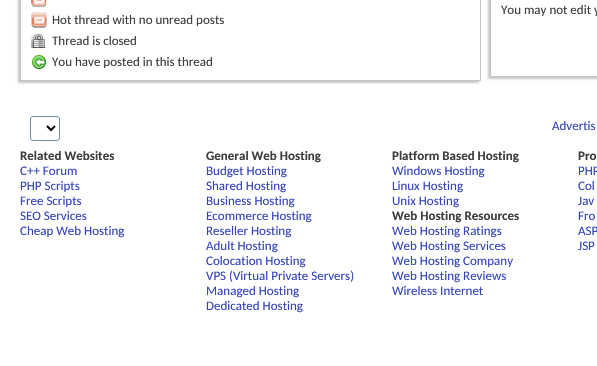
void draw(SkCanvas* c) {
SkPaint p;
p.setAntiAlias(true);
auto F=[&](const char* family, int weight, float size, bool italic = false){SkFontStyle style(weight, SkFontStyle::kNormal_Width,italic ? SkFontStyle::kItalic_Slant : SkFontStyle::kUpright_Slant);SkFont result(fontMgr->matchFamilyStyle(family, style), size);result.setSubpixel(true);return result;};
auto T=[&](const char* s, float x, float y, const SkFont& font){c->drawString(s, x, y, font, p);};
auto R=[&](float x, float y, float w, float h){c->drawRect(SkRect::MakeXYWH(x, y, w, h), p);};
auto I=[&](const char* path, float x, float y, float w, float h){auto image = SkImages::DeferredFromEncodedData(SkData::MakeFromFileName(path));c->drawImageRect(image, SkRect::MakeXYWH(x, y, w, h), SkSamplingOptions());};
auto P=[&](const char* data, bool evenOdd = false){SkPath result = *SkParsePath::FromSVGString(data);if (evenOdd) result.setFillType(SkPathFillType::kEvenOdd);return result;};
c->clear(0xffffffff);
c->save();
c->clipPath(P("M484 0h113v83h-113zm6-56h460v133h-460z",true),true);
p.setColor(0xffc8c8c8);
p.setMaskFilter(SkMaskFilter::MakeBlur(kNormal_SkBlurStyle, 1));
c->drawRect(SkRect::MakeXYWH(488,-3,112,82),p);
p.setMaskFilter(nullptr);
c->restore();
p.setColor(0xffc4c4c4);
R(490,76,107,1);
R(490,0,1,77);
auto f1 = F("Carlito",400,13);
p.setColor(0xff3e3e3e);
T("You may not edit y",501,14,f1);
c->save();
c->clipPath(P("M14 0h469v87h-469zm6-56h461v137h-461z",true),true);
p.setColor(0xffc8c8c8);
p.setMaskFilter(SkMaskFilter::MakeBlur(kNormal_SkBlurStyle, 1));
c->drawRect(SkRect::MakeXYWH(18,-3,461,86),p);
p.setMaskFilter(nullptr);
c->restore();
p.setColor(0xffc4c4c4);
R(480,0,1,81);
R(20,80,461,1);
R(20,0,1,81);
I("1.png",31,0,16,7);
I("2.png",31,12,16,16);
p.setColor(0xff3e3e3e);
T("Hot thread with no unread posts",52,24,f1);
I("3.png",31,33,16,15);
T("Thread is closed",52,45,f1);
I("4.png",32,55,14,14);
T("You have posted in this thread",52,66,f1);
p.setStroke(true);
p.setStrokeWidth(1);
p.setColor(0xff6b91ab);
c->drawRoundRect(SkRect::MakeXYWH(30.5,116.5,29,24),2.5,2.5,p);
p.setStrokeWidth(2);
p.setColor(0xff000000);
c->drawPath(P("M47 126l4 4l4-4"),p);
p.setStroke(false);
p.setColor(0xff3344bc);
T("Advertis",552,130,f1);
auto f2 = F("Carlito",700,13);
p.setColor(0xff3e3e3e);
T("Related Websites",20,160,f2);
T("General Web Hosting",206,160,f2);
T("Platform Based Hosting",392,160,f2);
T("Pro",578,160,f2);
p.setColor(0xff3344bc);
T("C++ Forum",20,175,f1);
T("PHP Scripts",20,190,f1);
T("Free Scripts",20,205,f1);
T("SEO Services",20,220,f1);
T("Cheap Web Hosting",20,235,f1);
T("Budget Hosting",206,175,f1);
T("Shared Hosting",206,190,f1);
T("Business Hosting",206,205,f1);
T("Ecommerce Hosting",206,220,f1);
T("Reseller Hosting",206,235,f1);
T("Adult Hosting",206,250,f1);
T("Colocation Hosting",206,265,f1);
T("VPS (Virtual Private Servers)",206,280,f1);
T("Managed Hosting",206,295,f1);
T("Dedicated Hosting",206,310,f1);
T("Windows Hosting",392,175,f1);
T("Linux Hosting",392,190,f1);
T("Unix Hosting",392,205,f1);
p.setColor(0xff3e3e3e);
T("Web Hosting Resources",392,220,f2);
p.setColor(0xff3344bc);
T("Web Hosting Ratings",392,235,f1);
T("Web Hosting Services",392,250,f1);
T("Web Hosting Company",392,265,f1);
T("Web Hosting Reviews",392,280,f1);
T("Wireless Internet",392,295,f1);
T("PHP",578,175,f1);
T("Col",578,190,f1);
T("Jav",578,205,f1);
T("Fro",578,220,f1);
T("ASP",578,235,f1);
T("JSP",578,250,f1);
}
